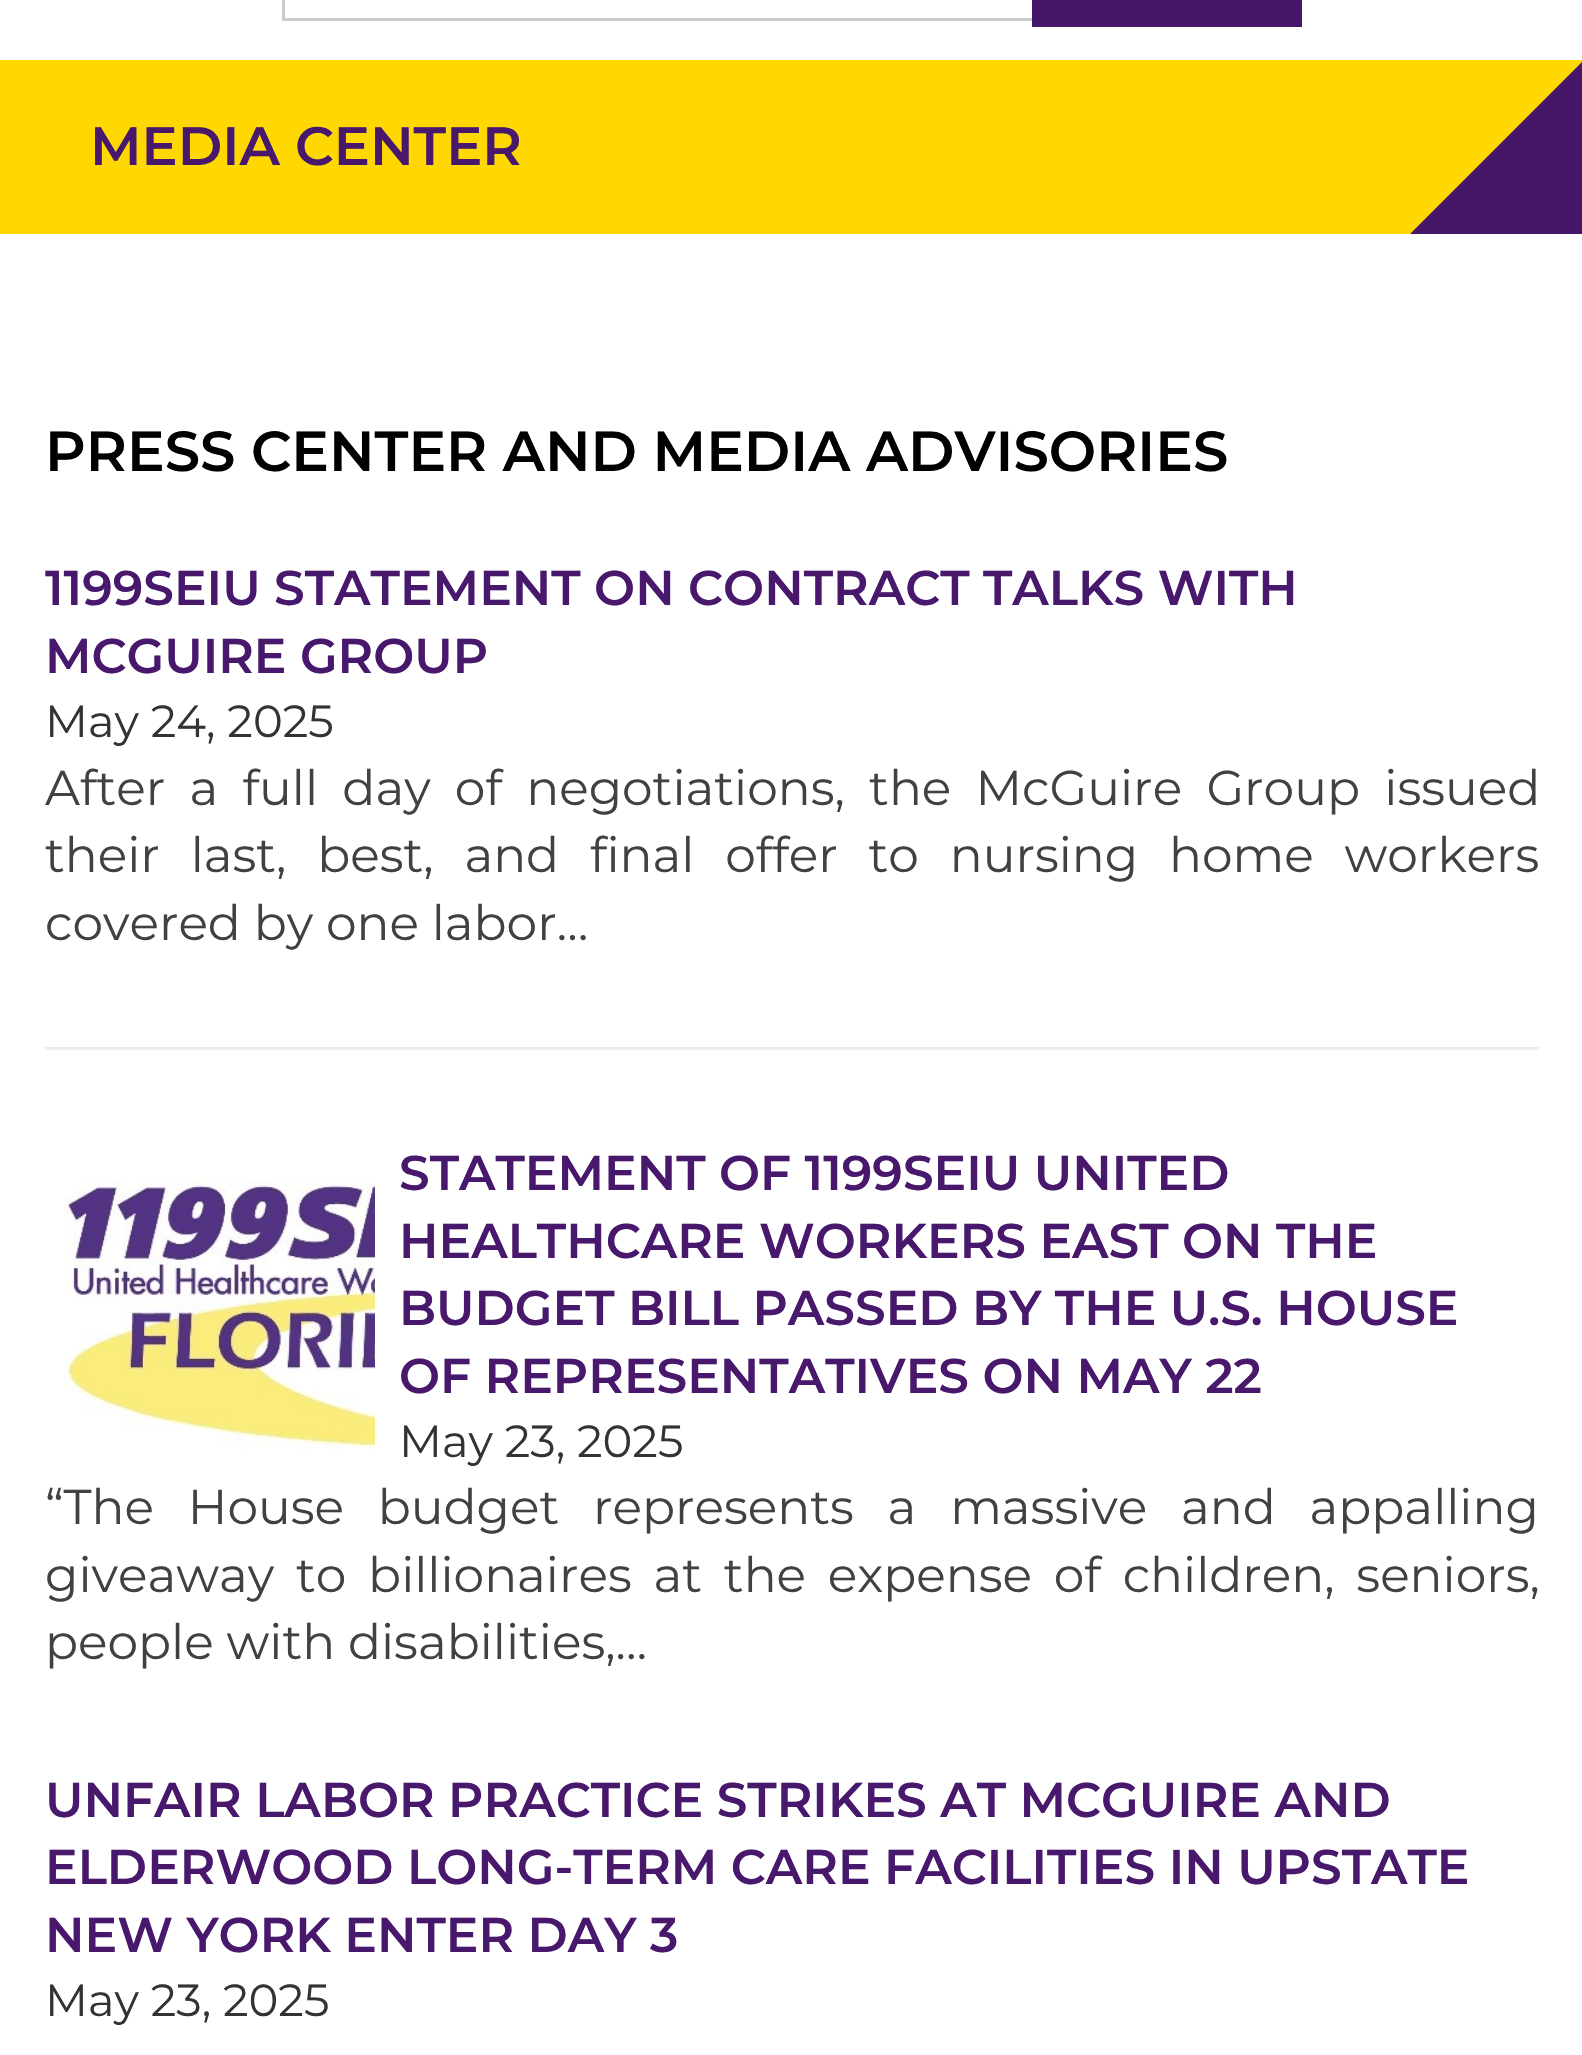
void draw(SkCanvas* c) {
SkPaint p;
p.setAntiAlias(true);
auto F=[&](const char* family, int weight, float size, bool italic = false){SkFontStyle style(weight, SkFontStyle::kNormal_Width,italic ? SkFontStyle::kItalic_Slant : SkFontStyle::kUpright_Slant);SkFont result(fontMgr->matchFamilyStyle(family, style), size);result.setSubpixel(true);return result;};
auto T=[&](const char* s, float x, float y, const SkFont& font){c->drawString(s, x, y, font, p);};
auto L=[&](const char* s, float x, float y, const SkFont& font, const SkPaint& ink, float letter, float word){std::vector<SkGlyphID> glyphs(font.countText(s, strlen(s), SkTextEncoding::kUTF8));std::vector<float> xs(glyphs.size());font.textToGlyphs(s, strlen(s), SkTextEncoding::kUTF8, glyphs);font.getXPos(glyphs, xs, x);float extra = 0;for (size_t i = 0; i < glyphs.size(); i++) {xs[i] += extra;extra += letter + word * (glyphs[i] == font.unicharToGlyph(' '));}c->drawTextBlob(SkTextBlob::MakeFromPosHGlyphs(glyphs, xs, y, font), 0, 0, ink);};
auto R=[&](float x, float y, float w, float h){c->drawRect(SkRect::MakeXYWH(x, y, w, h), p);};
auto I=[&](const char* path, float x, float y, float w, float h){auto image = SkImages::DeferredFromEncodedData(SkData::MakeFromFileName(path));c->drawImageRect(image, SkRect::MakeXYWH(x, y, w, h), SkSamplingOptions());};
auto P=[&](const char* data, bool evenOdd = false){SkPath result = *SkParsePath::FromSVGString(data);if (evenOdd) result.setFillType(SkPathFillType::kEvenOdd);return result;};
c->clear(0xffffffff);
p.setStroke(true);
p.setStrokeWidth(3);
p.setColor(0xffc7ccd0);
c->drawRect(SkRect::MakeXYWH(283.5,-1.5,750,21),p);
p.setStroke(false);
p.setColor(0xff46166b);
R(1032,0,270,27);
p.setColor(0xffffd801);
R(0,60,1582,174);
auto f1 = F("Montserrat",600,54);
p.setColor(0xff48186c);
T("MEDIA CENTER",90,165,f1);
p.setColor(0xff46166b);
c->drawPath(P("M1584 60v174h-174z"),p);
auto f2 = F("Montserrat",600,56.25);
p.setColor(0xff000000);
T("PRESS CENTER AND MEDIA ADVISORIES",45,471,f2);
p.setColor(0xffececec);
R(45,1047,1494,3);
auto f3 = F("Montserrat",600,48.75);
p.setColor(0xff48186c);
T("1199SEIU STATEMENT ON CONTRACT TALKS WITH",45,605,f3);
T("MCGUIRE GROUP",45,673,f3);
auto f4 = F("Montserrat",400,45);
p.setColor(0xff333333);
T("May 24, 2025",45,737,f4);
auto f5 = F("Montserrat",400,48.75);
p.setColor(0xff41413f);
L("After a full day of negotiations, the McGuire Group issued",45,805,f5,p,0,11.5);
L("their last, best, and final offer to nursing home workers",45,872,f5,p,0,18);
T("covered by one labor…",45,940,f5);
p.setColor(0xff48186c);
T("STATEMENT OF 1199SEIU UNITED",399,1190,f3);
T("HEALTHCARE WORKERS EAST ON THE",399,1258,f3);
T("BUDGET BILL PASSED BY THE U.S. HOUSE",399,1325,f3);
T("OF REPRESENTATIVES ON MAY 22",399,1393,f3);
p.setColor(0xff333333);
T("May 23, 2025",399,1457,f4);
p.setColor(0xff41413f);
L("“The House budget represents a massive and appalling",45,1524,f5,p,0,21);
L("giveaway to billionaires at the expense of children, seniors,",45,1592,f5,p,0,9);
T("people with disabilities,…",45,1659,f5);
I("1.png",64,1178,311,271);
p.setColor(0xff48186c);
T("UNFAIR LABOR PRACTICE STRIKES AT MCGUIRE AND",45,1817,f3);
T("ELDERWOOD LONG-TERM CARE FACILITIES IN UPSTATE",45,1884,f3);
T("NEW YORK ENTER DAY 3",45,1952,f3);
p.setColor(0xff333333);
T("May 23, 2025",45,2016,f4);
}
